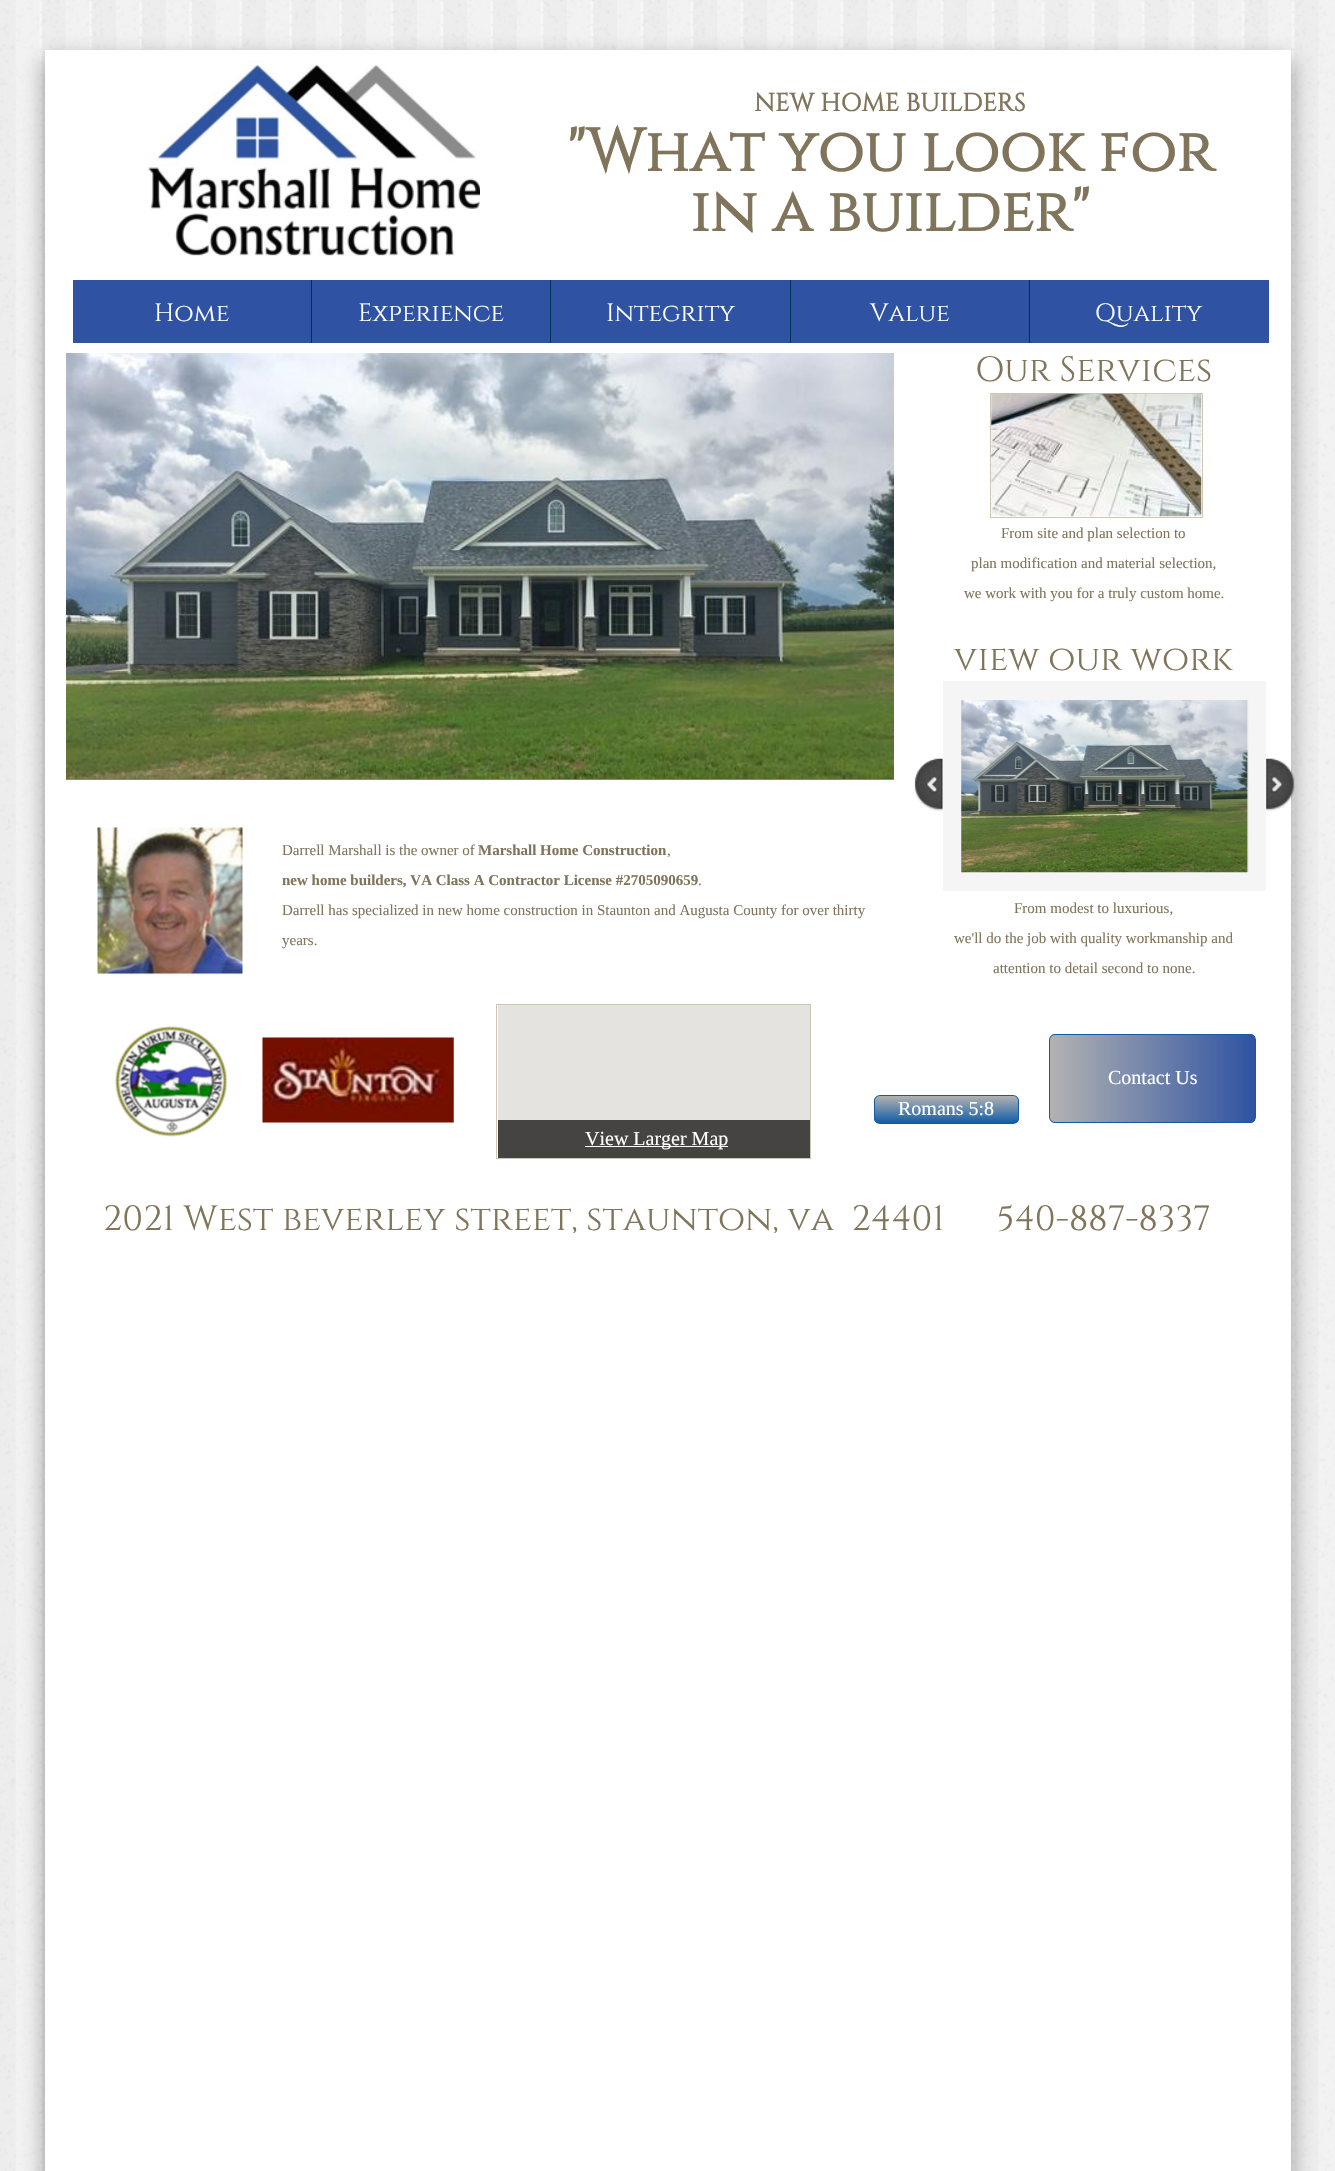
void draw(SkCanvas* c) {
SkPaint p;
p.setAntiAlias(true);
auto F=[&](const char* family, int weight, float size, bool italic = false){SkFontStyle style(weight, SkFontStyle::kNormal_Width,italic ? SkFontStyle::kItalic_Slant : SkFontStyle::kUpright_Slant);SkFont result(fontMgr->matchFamilyStyle(family, style), size);result.setSubpixel(true);return result;};
auto T=[&](const char* s, float x, float y, const SkFont& font){c->drawString(s, x, y, font, p);};
auto R=[&](float x, float y, float w, float h){c->drawRect(SkRect::MakeXYWH(x, y, w, h), p);};
auto I=[&](const char* path, float x, float y, float w, float h){auto image = SkImages::DeferredFromEncodedData(SkData::MakeFromFileName(path));c->drawImageRect(image, SkRect::MakeXYWH(x, y, w, h), SkSamplingOptions());};
auto P=[&](const char* data, bool evenOdd = false){SkPath result = *SkParsePath::FromSVGString(data);if (evenOdd) result.setFillType(SkPathFillType::kEvenOdd);return result;};
c->clear(0xffffffff);
I("1.png",0,0,1335,2171);
p.setColor(0x80323232);
p.setMaskFilter(SkMaskFilter::MakeBlur(kNormal_SkBlurStyle, 10.5));
c->drawRect(SkRect::MakeXYWH(45,59,1246,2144),p);
p.setMaskFilter(nullptr);
p.setColor(0xffffffff);
R(45,50,1246,2121);
I("2.png",148,60,332,196);
auto f1 = F("Cinzel",700,25);
p.setColor(0xff80745b);
T("NEW HOME BUILDERS",754,111,f1);
auto f2 = F("Cinzel",700,60);
T("\"What you look for",567,171,f2);
T("in a builder\"",690,231,f2);
p.setColor(0xff2f53a2);
R(73,280,238,63);
auto f3 = F("Cinzel",400,25);
p.setColor(0xffffffff);
T("Home",154,321,f3);
p.setColor(0xff2f53a2);
R(312,280,238,63);
p.setColor(0xff003255);
R(311,280,1,63);
p.setColor(0xffffffff);
T("Experience",358,321,f3);
p.setColor(0xff2f53a2);
R(551,280,239,63);
p.setColor(0xff003255);
R(550,280,1,63);
p.setColor(0xffffffff);
T("Integrity",606,321,f3);
p.setColor(0xff2f53a2);
R(791,280,238,63);
p.setColor(0xff003255);
R(790,280,1,63);
p.setColor(0xffffffff);
T("Value",870,321,f3);
p.setColor(0xff2f53a2);
R(1030,280,239,63);
p.setColor(0xff003255);
R(1029,280,1,63);
p.setColor(0xffffffff);
T("Quality",1095,321,f3);
p.setColor(0xffee6722);
R(66,779,828,1);
I("3.png",66,353,828,426);
auto f4 = F("Cinzel",400,35);
p.setColor(0xff80745b);
T("Our Services",975,381,f4);
p.setStroke(true);
p.setStrokeWidth(1);
p.setColor(0xffcbc7b1);
c->drawRect(SkRect::MakeXYWH(990.5,393.5,212,124),p);
I("4.png",991,393,211,124);
auto f5 = F("Liberation Serif",400,15);
p.setStroke(false);
p.setColor(0xff80745b);
T("From site and plan selection to",1001,538,f5);
T("plan modification and material selection,",971,568,f5);
T("we work with you for a truly custom home.",964,598,f5);
T("view our work",954,670,f4);
I("5.png",97,827,146,148);
T("Darrell Marshall is the owner of",282,855,f5);
auto f6 = F("Liberation Serif",700,15);
T("Marshall Home Construction",478,855,f6);
T(",",667,855,f5);
T("new home builders, VA Class A Contractor License #2705090659",282,885,f6);
T(".",698,885,f5);
T("Darrell has specialized in new home construction in Staunton and Augusta County for over thirty",282,915,f5);
T("years.",282,945,f5);
I("6.png",914,758,29,53);
p.setStroke(true);
p.setStrokeWidth(19);
p.setColor(0xfff5f5f5);
c->drawRect(SkRect::MakeXYWH(952.5,690.5,304,191),p);
I("7.png",961,700,288,173);
I("8.png",1266,758,29,53);
p.setStroke(false);
p.setColor(0xff80745b);
T("From modest to luxurious,",1014,913,f5);
T("we'll do the job with quality workmanship and",954,943,f5);
T("attention to detail second to none.",993,973,f5);
I("9.png",114,1026,114,111);
I("10.png",262,1037,192,86);
c->save();
c->clipPath(P("M1055 1034h195c3.5 0 6 2.5 6 6v77c0 3.5-2.5 6-6 6h-195c-3.5 0-6-2.5-6-6v-77c0-3.5 2.5-6 6-6z"),true);
{
const SkColor colors[] = {0xffb2b2b2,0xff2f53a2};
const float stops[] = {0,1};
const SkPoint ends[] = {{1050,1078}, {1255,1078}};
p.setShader(SkGradientShader::MakeLinear(ends, colors, stops, 2, SkTileMode::kClamp));
p.setAlpha(255);
}
R(1050,1034,205,89);
c->restore();
p.setStroke(true);
p.setStrokeWidth(1);
p.setShader(nullptr);
p.setColor(0xff125ca6);
c->drawRoundRect(SkRect::MakeXYWH(1049.5,1034.5,206,88),5.5,5.5,p);
auto f7 = F("Liberation Serif",400,20);
p.setStroke(false);
p.setColor(0xffffffff);
T("Contact Us",1108,1084,f7);
c->save();
c->clipPath(P("M880 1095h133c3.5 0 6 2.5 6 6v17c0 3.5-2.5 6-6 6h-133c-3.5 0-6-2.5-6-6v-17c0-3.5 2.5-6 6-6z"),true);
{
const SkColor colors[] = {0xffb2b2b2,0xff125ca6};
const float stops[] = {0,1};
const SkPoint ends[] = {{946,1096}, {946,1123}};
p.setShader(SkGradientShader::MakeLinear(ends, colors, stops, 2, SkTileMode::kClamp));
p.setAlpha(255);
}
R(874,1096,145,27);
c->restore();
p.setStroke(true);
p.setShader(nullptr);
p.setColor(0xff125ca6);
c->drawRoundRect(SkRect::MakeXYWH(874.5,1095.5,144,28),5.5,5.5,p);
p.setStroke(false);
p.setColor(0xffffffff);
T("Romans 5:8",898,1115,f7);
p.setStroke(true);
p.setColor(0xffcbc7b1);
c->drawRect(SkRect::MakeXYWH(496.5,1004.5,314,154),p);
p.setStroke(false);
p.setColor(0xffe5e3df);
R(498,1005,312,115);
p.setColor(0xff454443);
R(498,1120,312,38);
p.setColor(0xffffffff);
R(585,1146,143,1);
T("View Larger Map",585,1145,f7);
p.setColor(0xff80745b);
T("2021 West beverley street, staunton, va  24401      540-887-8337",103,1230,f4);
}
